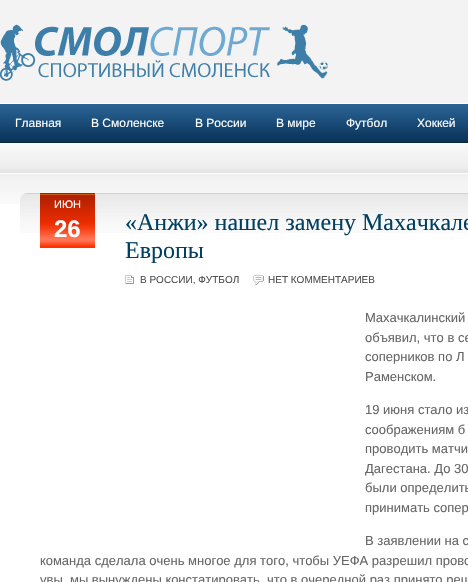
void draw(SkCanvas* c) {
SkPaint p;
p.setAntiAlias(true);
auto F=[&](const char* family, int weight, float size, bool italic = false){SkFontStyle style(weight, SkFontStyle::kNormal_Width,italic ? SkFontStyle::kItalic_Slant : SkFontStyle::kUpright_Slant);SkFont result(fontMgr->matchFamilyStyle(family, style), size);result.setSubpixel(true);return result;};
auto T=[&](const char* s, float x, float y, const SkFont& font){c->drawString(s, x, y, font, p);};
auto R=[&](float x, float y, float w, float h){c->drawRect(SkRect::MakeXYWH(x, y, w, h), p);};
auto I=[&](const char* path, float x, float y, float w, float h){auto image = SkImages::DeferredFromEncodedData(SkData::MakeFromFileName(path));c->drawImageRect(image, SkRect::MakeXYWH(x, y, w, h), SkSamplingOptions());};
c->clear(0xfff3f3f3);
p.setColor(0xffffffff);
R(0,103,468,1);
I("1.png",0,24,328,57);
I("2.png",0,104,468,39);
auto f1 = F("Liberation Sans",400,12);
T("Главная",15,127,f1);
T("В Смоленске",91,127,f1);
T("В России",195,127,f1);
T("В мире",276,127,f1);
T("Футбол",346,127,f1);
T("Хоккей",417,127,f1);
I("3.png",0,143,468,26);
I("4.png",0,169,468,4);
R(0,173,468,409);
I("5.png",0,174,468,30);
I("6.png",20,193,448,40);
p.setColor(0xffff3203);
R(40,246,55,2);
I("7.png",40,193,55,53);
auto f2 = F("Liberation Sans",400,11);
p.setColor(0xffffffff);
T("ИЮН",54,208,f2);
auto f3 = F("Liberation Sans",700,24);
T("26",54,237,f3);
auto f4 = F("Liberation Serif",400,24);
p.setColor(0xff003f62);
T("«Анжи» нашел замену Махачкале",125,230,f4);
T("Европы",125,258,f4);
I("8.png",125,275,9,9);
auto f5 = F("Liberation Sans",400,10);
p.setColor(0xff505050);
T("В РОССИИ, ФУТБОЛ",140,283,f5);
I("9.png",253,275,11,10);
T("НЕТ КОММЕНТАРИЕВ",268,283,f5);
auto f6 = F("Liberation Sans",400,13);
p.setColor(0xff666666);
T("Махачкалинский",365,322,f6);
T("объявил, что в се",365,342,f6);
T("соперников по Л",365,361,f6);
T("Раменском.",365,381,f6);
T("19 июня стало из",365,414,f6);
T("соображениям б",365,434,f6);
T("проводить матчи",365,453,f6);
T("Дагестана. До 30",365,473,f6);
T("были определить",365,492,f6);
T("принимать сопер",365,512,f6);
T("В заявлении на с",365,545,f6);
T("команда сделала очень многое для того, чтобы УЕФА разрешил прово",40,565,f6);
T("увы, мы вынуждены констатировать, что в очередной раз принято реш",40,584,f6);
}
